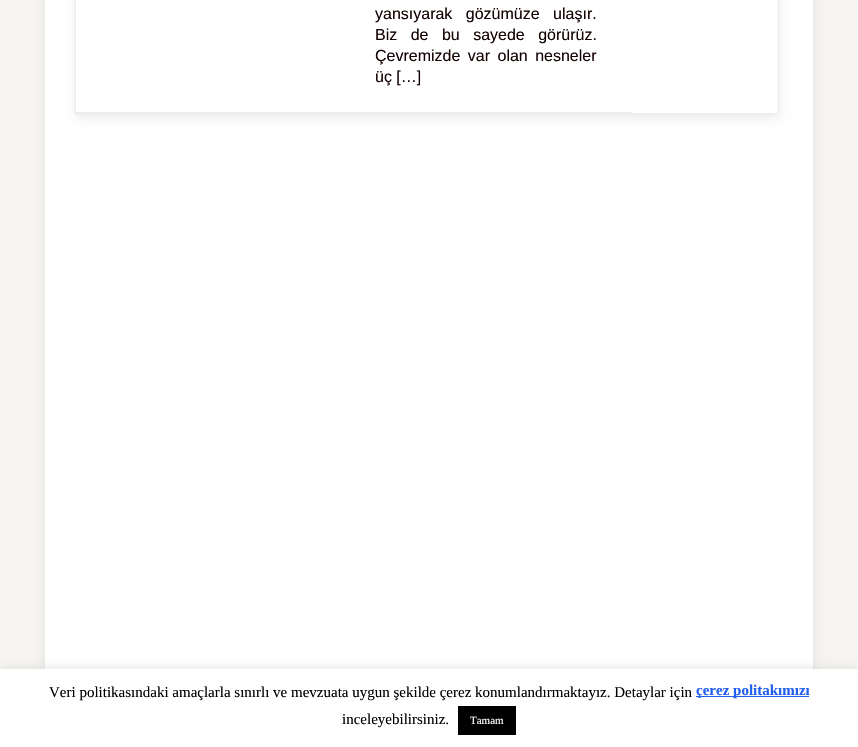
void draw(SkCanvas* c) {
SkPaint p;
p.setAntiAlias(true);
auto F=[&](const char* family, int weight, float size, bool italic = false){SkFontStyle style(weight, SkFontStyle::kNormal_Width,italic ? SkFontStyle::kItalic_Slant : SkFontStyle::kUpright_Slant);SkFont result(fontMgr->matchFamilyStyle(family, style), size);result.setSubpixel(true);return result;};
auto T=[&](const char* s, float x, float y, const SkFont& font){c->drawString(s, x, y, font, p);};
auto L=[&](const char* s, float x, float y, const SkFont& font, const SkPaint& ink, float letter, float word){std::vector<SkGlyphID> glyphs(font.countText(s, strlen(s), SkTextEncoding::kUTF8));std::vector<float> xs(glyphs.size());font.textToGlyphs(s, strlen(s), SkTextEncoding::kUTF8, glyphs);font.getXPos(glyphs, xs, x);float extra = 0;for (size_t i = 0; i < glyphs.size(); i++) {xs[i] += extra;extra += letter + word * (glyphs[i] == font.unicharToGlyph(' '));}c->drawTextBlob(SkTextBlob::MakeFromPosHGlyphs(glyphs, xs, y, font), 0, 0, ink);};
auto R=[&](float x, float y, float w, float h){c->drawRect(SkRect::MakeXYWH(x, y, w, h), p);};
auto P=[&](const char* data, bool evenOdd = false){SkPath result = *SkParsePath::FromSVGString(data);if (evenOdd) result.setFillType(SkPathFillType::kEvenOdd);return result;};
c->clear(0xfff6f5f2);
p.setColor(0x14000000);
p.setMaskFilter(SkMaskFilter::MakeBlur(kNormal_SkBlurStyle, 5));
c->drawRect(SkRect::MakeXYWH(45,-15,768,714),p);
p.setMaskFilter(nullptr);
p.setColor(0xffffffff);
R(45,0,768,669);
c->save();
c->clipPath(P("M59 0h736v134h-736zm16-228h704v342h-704z",true),true);
p.setColor(0x14000000);
p.setMaskFilter(SkMaskFilter::MakeBlur(kNormal_SkBlurStyle, 5));
c->drawRect(SkRect::MakeXYWH(75,-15,704,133),p);
p.setMaskFilter(nullptr);
c->restore();
p.setColor(0xffebebeb);
c->drawPath(P("M779-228v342l-1-1v-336z"),p);
R(75,113,704,1);
c->drawPath(P("M75 114v-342l1 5v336z"),p);
R(76,112,556,1);
auto f1 = F("Liberation Sans",400,16);
p.setColor(0xff130201);
L("yansıyarak gözümüze ulaşır.",375,19,f1,p,0,9);
L("Biz de bu sayede görürüz.",375,40,f1,p,0,9);
L("Çevremizde var olan nesneler",375,61,f1,p,0,3);
T("üç […]",375,82,f1);
p.setColor(0x4dacabab);
p.setMaskFilter(SkMaskFilter::MakeBlur(kNormal_SkBlurStyle, 5));
c->drawRect(SkRect::MakeXYWH(0,668,858,78),p);
p.setMaskFilter(nullptr);
p.setColor(0xffffffff);
R(0,669,858,78);
auto f2 = F("Liberation Serif",400,15);
p.setColor(0xff000000);
T("Veri politikasındaki amaçlarla sınırlı ve mevzuata uygun şekilde çerez konumlandırmaktayız. Detaylar için",49,697,f2);
p.setColor(0xff215fef);
R(696,696,113,1);
auto f3 = F("Liberation Serif",700,15);
T("çerez politakımızı",696,695,f3);
p.setColor(0xff000000);
T("inceleyebilirsiniz.",342,724,f2);
R(458,706,58,29);
auto f4 = F("Liberation Serif",400,11);
p.setColor(0xffffffff);
T("Tamam",470,724,f4);
}
